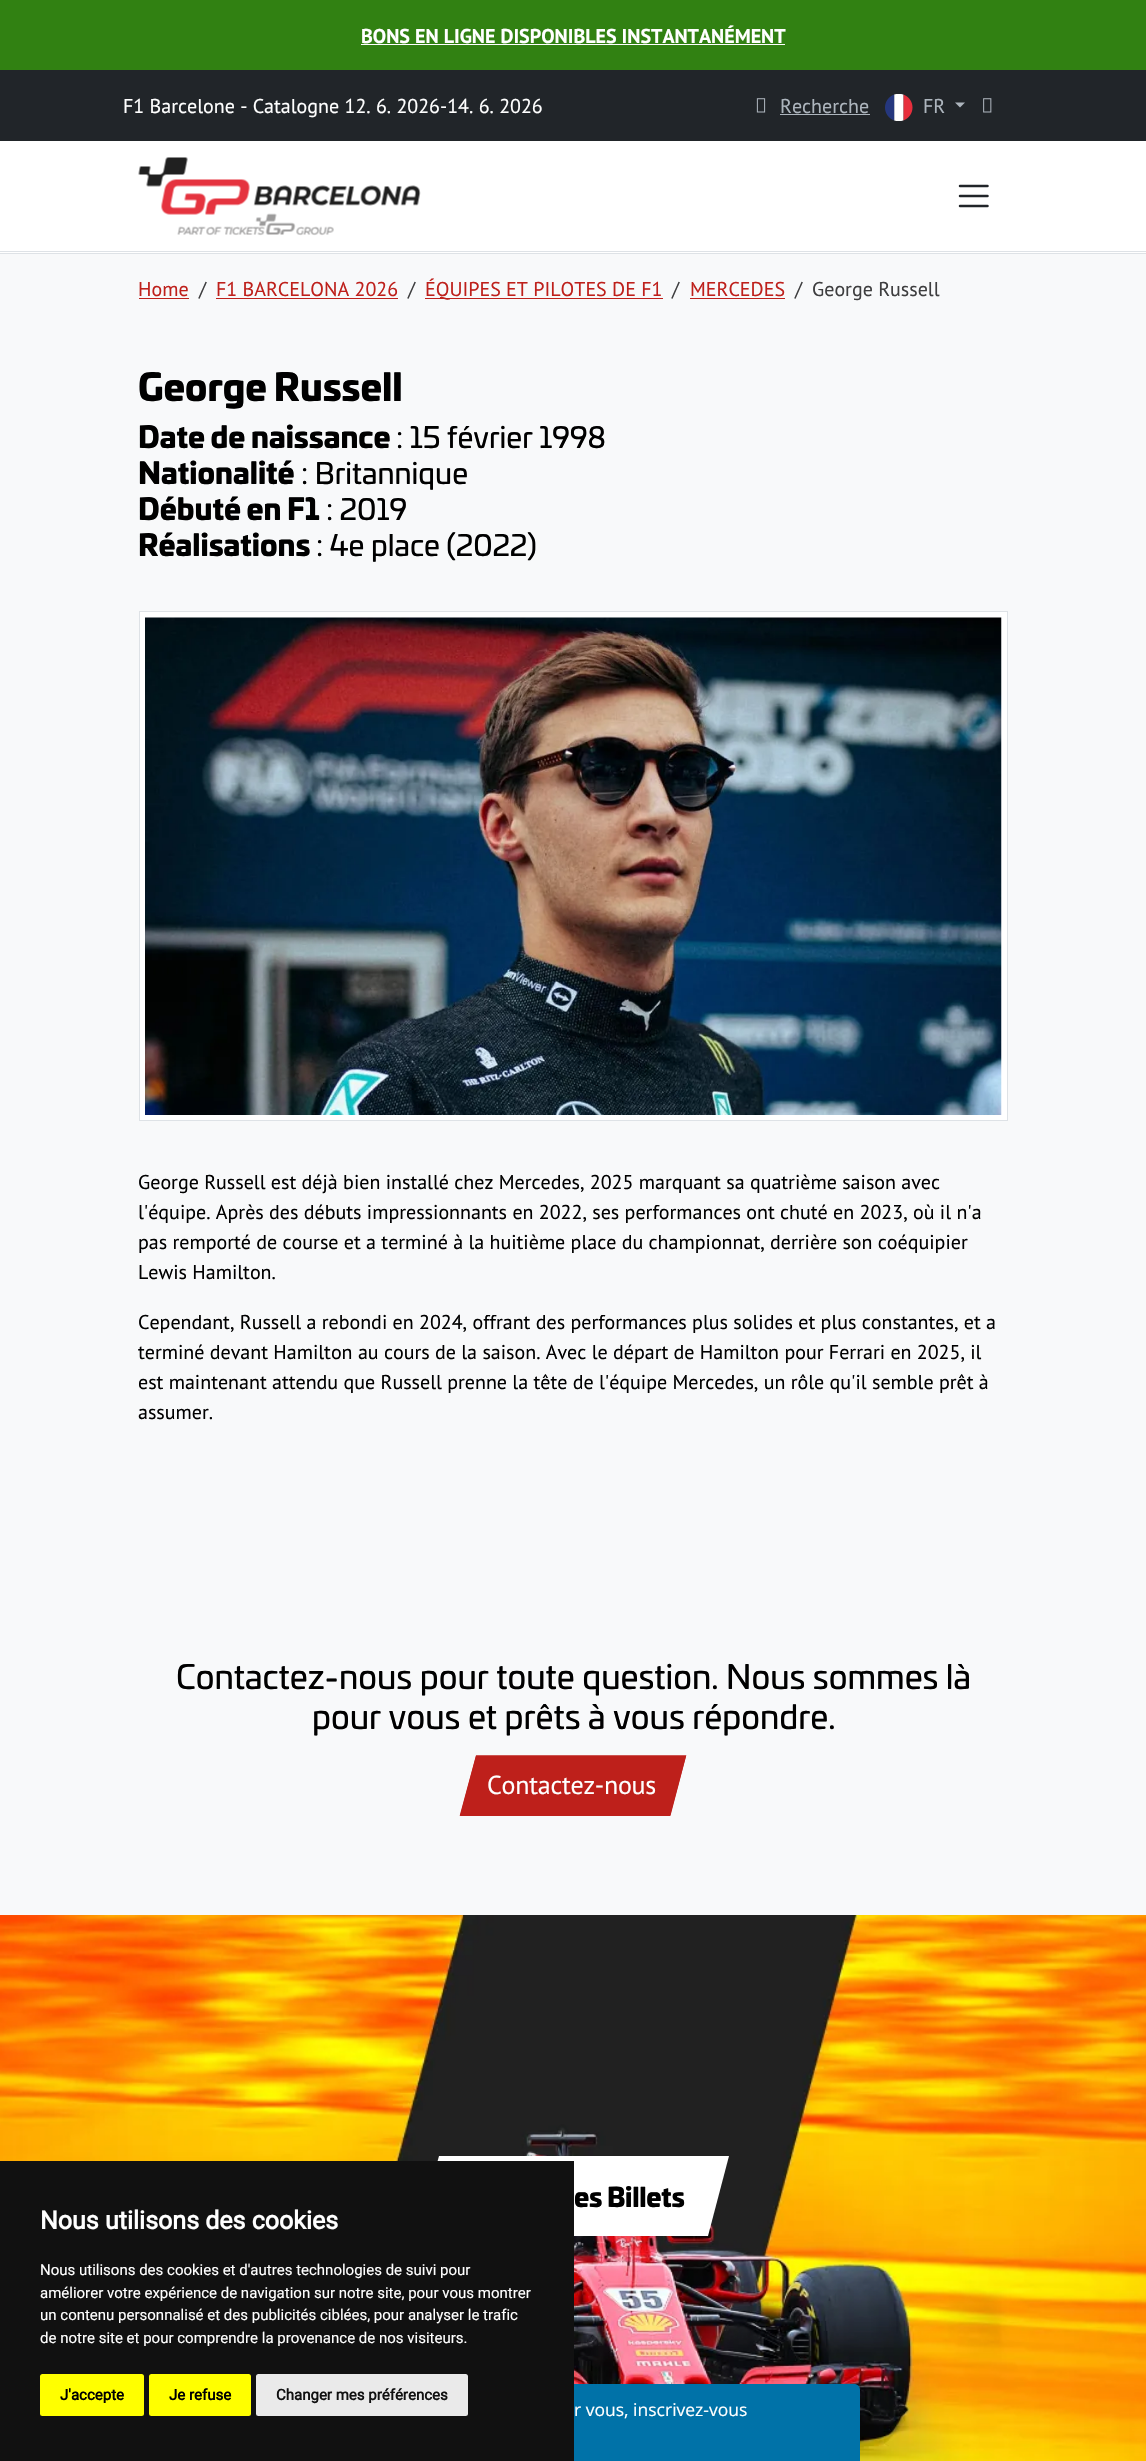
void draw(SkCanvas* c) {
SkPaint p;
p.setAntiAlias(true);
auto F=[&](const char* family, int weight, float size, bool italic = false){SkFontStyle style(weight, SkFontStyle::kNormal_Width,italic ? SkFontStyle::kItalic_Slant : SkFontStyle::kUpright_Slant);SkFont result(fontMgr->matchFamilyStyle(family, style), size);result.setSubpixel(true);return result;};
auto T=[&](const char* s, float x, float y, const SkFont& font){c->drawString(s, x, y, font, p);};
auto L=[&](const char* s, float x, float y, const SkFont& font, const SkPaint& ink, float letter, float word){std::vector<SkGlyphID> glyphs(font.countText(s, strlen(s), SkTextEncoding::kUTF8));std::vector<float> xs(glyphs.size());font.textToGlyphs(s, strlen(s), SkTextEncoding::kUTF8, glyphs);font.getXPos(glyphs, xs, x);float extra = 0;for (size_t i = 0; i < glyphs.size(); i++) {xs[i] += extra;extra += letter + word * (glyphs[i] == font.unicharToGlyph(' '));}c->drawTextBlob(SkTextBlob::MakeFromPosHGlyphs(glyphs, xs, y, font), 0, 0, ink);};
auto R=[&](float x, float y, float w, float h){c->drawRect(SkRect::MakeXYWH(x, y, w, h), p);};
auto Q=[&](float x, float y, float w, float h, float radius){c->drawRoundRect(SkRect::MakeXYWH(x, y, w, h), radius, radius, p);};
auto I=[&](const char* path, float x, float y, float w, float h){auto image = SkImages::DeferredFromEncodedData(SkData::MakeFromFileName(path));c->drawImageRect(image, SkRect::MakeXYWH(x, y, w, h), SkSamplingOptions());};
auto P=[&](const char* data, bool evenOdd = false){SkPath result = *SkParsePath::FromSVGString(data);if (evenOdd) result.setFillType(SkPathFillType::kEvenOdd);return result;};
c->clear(0xffffffff);
p.setColor(0xff318112);
R(0,0,1146,70);
auto f1 = F("PT Sans",700,20);
p.setColor(0xffffffff);
T("BONS EN LIGNE DISPONIBLES INSTANTANÉMENT",361,43,f1);
R(361,44,424,1);
p.setColor(0xff212529);
R(0,70,1146,71);
auto f2 = F("PT Sans",400,20);
p.setColor(0xffffffff);
T("F1 Barcelone - Catalogne 12. 6. 2026-14. 6. 2026",123,113,f2);
I("1.png",756,98,10,15);
p.setColor(0xffadb5bd);
T("Recherche",780,113,f2);
R(780,114,90,1);
I("2.png",885,94,28,27);
T("FR",923,113,f2);
c->drawPath(P("M955 102.5h10l-5 5z"),p);
I("3.png",983,98,9,15);
p.setColor(0xffdee2e6);
R(0,251,1146,1);
I("4.png",138,157,283,79);
p.setStroke(true);
p.setStrokeWidth(2.5);
p.setStrokeCap(SkPaint::kRound_Cap);
p.setColor(0xff212529);
c->drawPath(P("M960 186h27.5m-27.5 10h27.5m-27.5 10h27.5"),p);
p.setStroke(false);
p.setColor(0xfff8f9fa);
R(0,254,1146,1661);
p.setColor(0xffdee2e6);
R(0,253,1146,1);
p.setColor(0xffbe201b);
T("Home",138,296,f2);
R(139,298,50,1);
p.setColor(0xff3e3e3f);
T("/",199,296,f2);
p.setColor(0xffbe201b);
T("F1 BARCELONA 2026",216,296,f2);
R(216,298,182,1);
p.setColor(0xff3e3e3f);
T("/",408,296,f2);
p.setColor(0xffbe201b);
R(425,298,238,1);
T("ÉQUIPES ET PILOTES DE F1",425,296,f2);
p.setColor(0xff3e3e3f);
T("/",672,296,f2);
p.setColor(0xffbe201b);
T("MERCEDES",690,296,f2);
R(690,298,95,1);
p.setColor(0xff3e3e3f);
T("/",795,296,f2);
T("George Russell",812,296,f2);
auto f3 = F("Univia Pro",900,36.75);
p.setColor(0xff000000);
T("George Russell",138,401,f3);
auto f4 = F("Univia Pro",900,29);
T("Date de naissance",138,448,f4);
auto f5 = F("Univia Pro",400,29);
T(": 15 février 1998",396,448,f5);
T("Nationalité",138,484,f4);
T(": Britannique",301,484,f5);
T("Débuté en F1",138,520,f4);
T(": 2019",326,520,f5);
T("Réalisations",138,556,f4);
T(": 4e place (2022)",316,556,f5);
p.setColor(0xffffffff);
c->drawRect(SkRect::MakeXYWH(139.5,611.5,868,509),p);
p.setStroke(true);
p.setStrokeWidth(1);
p.setStrokeCap(SkPaint::kButt_Cap);
p.setColor(0xffdee2e6);
c->drawRect(SkRect::MakeXYWH(139.5,611.5,868,509),p);
I("5.png",145,617,857,498);
p.setStroke(false);
p.setColor(0xff000000);
T("George Russell est déjà bien installé chez Mercedes, 2025 marquant sa quatrième saison avec",138,1189,f2);
T("l'équipe. Après des débuts impressionnants en 2022, ses performances ont chuté en 2023, où il n'a",138,1219,f2);
T("pas remporté de course et a terminé à la huitième place du championnat, derrière son coéquipier",138,1249,f2);
T("Lewis Hamilton.",138,1279,f2);
T("Cependant, Russell a rebondi en 2024, offrant des performances plus solides et plus constantes, et a",138,1329,f2);
T("terminé devant Hamilton au cours de la saison. Avec le départ de Hamilton pour Ferrari en 2025, il",138,1359,f2);
T("est maintenant attendu que Russell prenne la tête de l'équipe Mercedes, un rôle qu'il semble prêt à",138,1389,f2);
T("assumer.",138,1419,f2);
auto f6 = F("Univia Pro",400,32.9);
T("Contactez-nous pour toute question. Nous sommes là",176,1689,f6);
T("pour vous et prêts à vous répondre.",312,1729,f6);
p.setColor(0xffbe201b);
c->drawPath(P("M476 1756h210l-16 60h-210z"),p);
p.setStroke(true);
p.setStrokeWidth(1.3);
c->drawPath(P("M476.5 1756h209l-15.5 59h-209.5z"),p);
auto f7 = F("PT Sans",400,26);
p.setStroke(false);
p.setColor(0xffffffff);
L("Contactez-nous",487,1794,f7,p,-.25,0);
I("6.png",0,1915,1146,546);
c->drawPath(P("M439 2156h290l-21 80h-291z"),p);
auto f8 = F("Univia Pro",900,26);
p.setColor(0xff000000);
L("es Billets",574,2207,f8,p,-.25,0);
p.setColor(0xff0072a8);
c->drawPath(P("M294 2384h560c3.5 0 6 2.5 6 6v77h-572v-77c0-3.5 2.5-6 6-6z"),p);
p.setColor(0xff111111);
R(0,2161,574,300);
auto f9 = F("Roboto",700,25);
p.setColor(0xffffffff);
T("Nous utilisons des cookies",40,2229,f9);
auto f10 = F("Roboto",400,15);
T("Nous utilisons des cookies et d'autres technologies de suivi pour",40,2275,f10);
T("améliorer votre expérience de navigation sur notre site, pour vous montrer",40,2298,f10);
T("un contenu personnalisé et des publicités ciblées, pour analyser le trafic",40,2320,f10);
T("de notre site et pour comprendre la provenance de nos visiteurs.",40,2343,f10);
p.setColor(0xffffff00);
Q(40,2374,104,42,2.5);
auto f11 = F("Roboto",700,15);
p.setColor(0xff000000);
T("J'accepte",60,2400,f11);
p.setColor(0xffffff00);
Q(149,2374,102,42,2.5);
p.setColor(0xff000000);
T("Je refuse",169,2400,f11);
p.setColor(0xffeaeaea);
Q(256,2374,212,42,2.5);
p.setColor(0xff111111);
T("Changer mes préférences",276,2400,f11);
auto f12 = F("Open Sans",400,17.5);
p.setColor(0xffffffff);
T("r vous, inscrivez-vous",574,2416,f12);
}
